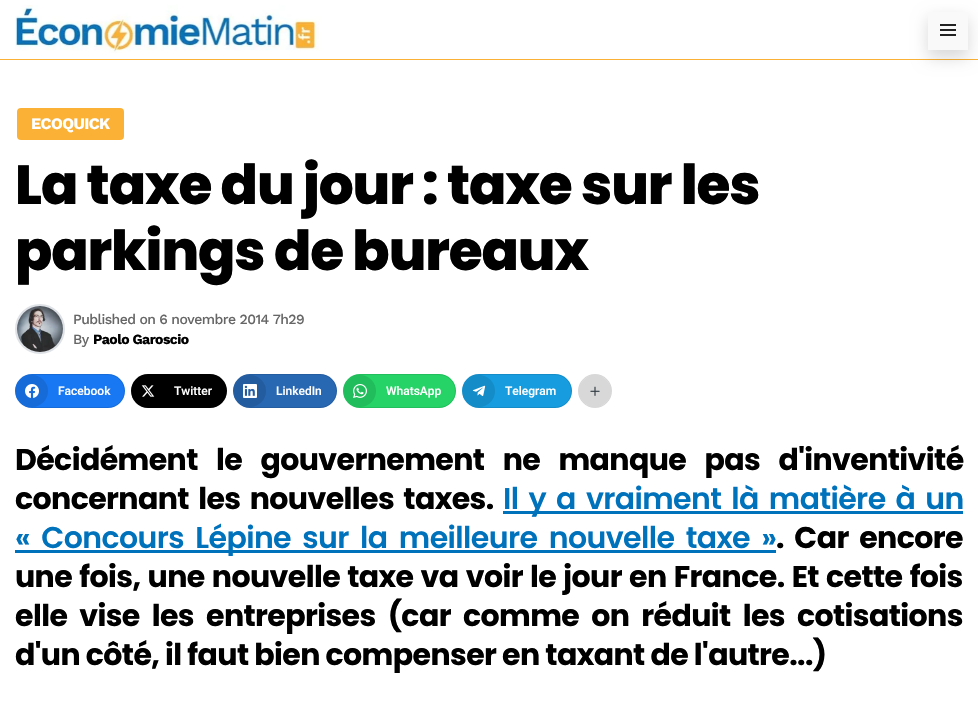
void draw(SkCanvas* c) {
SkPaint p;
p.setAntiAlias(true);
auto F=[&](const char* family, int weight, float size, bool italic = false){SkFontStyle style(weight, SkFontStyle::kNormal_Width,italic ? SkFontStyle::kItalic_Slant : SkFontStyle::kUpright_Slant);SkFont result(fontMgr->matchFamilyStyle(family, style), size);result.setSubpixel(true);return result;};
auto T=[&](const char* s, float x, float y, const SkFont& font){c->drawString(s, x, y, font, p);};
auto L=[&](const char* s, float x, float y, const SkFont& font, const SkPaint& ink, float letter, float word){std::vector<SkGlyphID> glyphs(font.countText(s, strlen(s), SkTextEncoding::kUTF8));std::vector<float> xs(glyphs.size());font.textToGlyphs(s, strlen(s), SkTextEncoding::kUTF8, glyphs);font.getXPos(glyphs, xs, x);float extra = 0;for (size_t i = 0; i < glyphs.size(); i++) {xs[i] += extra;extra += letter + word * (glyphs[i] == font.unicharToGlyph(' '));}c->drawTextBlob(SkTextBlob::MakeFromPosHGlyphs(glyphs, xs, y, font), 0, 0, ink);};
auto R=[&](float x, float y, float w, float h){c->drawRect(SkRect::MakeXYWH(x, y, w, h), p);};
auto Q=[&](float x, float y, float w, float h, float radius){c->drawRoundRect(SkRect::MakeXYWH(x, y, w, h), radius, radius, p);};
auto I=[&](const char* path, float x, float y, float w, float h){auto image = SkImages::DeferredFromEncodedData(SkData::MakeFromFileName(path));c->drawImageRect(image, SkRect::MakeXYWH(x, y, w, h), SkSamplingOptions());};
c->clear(0xffffffff);
p.setColor(0xfffab136);
R(0,59,978,1);
I("1.png",15,5,307,48);
p.setColor(0x26000000);
p.setMaskFilter(SkMaskFilter::MakeBlur(kNormal_SkBlurStyle, 8));
c->drawRect(SkRect::MakeXYWH(928,18,40,40),p);
p.setMaskFilter(nullptr);
p.setColor(0xfff9f9f9);
R(928,12,40,38);
p.setColor(0xff222222);
R(940,24,16,2);
R(940,29,16,2);
R(940,34,16,2);
p.setColor(0xfffab136);
Q(17,108,107,32,4);
auto f1 = F("Work Sans",700,16);
p.setColor(0xffffffff);
L("ECOQUICK",31,129,f1,p,-.55,0);
auto f2 = F("Poppins",800,55);
p.setColor(0xff000000);
L("La taxe du jour : taxe sur les",15,204,f2,p,-1.1,0);
L("parkings de bureaux",15,270,f2,p,-1.1,0);
p.setStroke(true);
p.setStrokeWidth(2);
p.setColor(0xffdee2e6);
c->drawCircle(40,329,24,p);
I("2.png",17,306,46,46);
auto f3 = F("Work Sans",500,14);
p.setStroke(false);
p.setColor(0xff666666);
L("Published on 6 novembre 2014 7h29",73,324,f3,p,-.55,0);
L("By",73,344,f3,p,-.55,0);
auto f4 = F("Work Sans",700,14);
p.setColor(0xff000000);
L("Paolo Garoscio",93,344,f4,p,-.55,0);
p.setColor(0xff1877f2);
Q(15,374,110,34,17);
p.setStroke(true);
p.setStrokeWidth(1);
p.setColor(0x1a000000);
c->drawRoundRect(SkRect::MakeXYWH(15.5,374.5,109,33),16.5,16.5,p);
p.setStroke(false);
c->drawCircle(32,391,16,p);
I("3.png",25,384,14,14);
auto f5 = F("Roboto",500,12);
p.setColor(0xffffffff);
T("Facebook",58,395,f5);
p.setColor(0xff000000);
Q(131,374,96,34,17);
p.setStroke(true);
p.setColor(0x1a000000);
c->drawRoundRect(SkRect::MakeXYWH(131.5,374.5,95,33),16.5,16.5,p);
I("4.png",141,385,14,12);
p.setStroke(false);
p.setColor(0xffffffff);
T("Twitter",174,395,f5);
p.setColor(0xff2867b2);
Q(233,374,104,34,17);
p.setStroke(true);
p.setColor(0x1a000000);
c->drawRoundRect(SkRect::MakeXYWH(233.5,374.5,103,33),16.5,16.5,p);
p.setStroke(false);
c->drawCircle(250,391,16,p);
I("5.png",243,384,14,14);
p.setColor(0xffffffff);
T("LinkedIn",276,395,f5);
p.setColor(0xff25d366);
Q(343,374,113,34,17);
p.setStroke(true);
p.setColor(0x1a000000);
c->drawRoundRect(SkRect::MakeXYWH(343.5,374.5,112,33),16.5,16.5,p);
p.setStroke(false);
c->drawCircle(360,391,16,p);
I("6.png",353,384,14,14);
p.setColor(0xffffffff);
T("WhatsApp",386,395,f5);
p.setColor(0xff169cdf);
Q(462,374,110,34,17);
p.setStroke(true);
p.setColor(0x1a000000);
c->drawRoundRect(SkRect::MakeXYWH(462.5,374.5,109,33),16.5,16.5,p);
p.setStroke(false);
c->drawCircle(479,391,16,p);
I("7.png",472,385,14,11);
p.setColor(0xffffffff);
T("Telegram",505,395,f5);
p.setColor(0xfff1f1f1);
c->drawCircle(595,391,17,p);
p.setStroke(true);
p.setColor(0x1a000000);
c->drawCircle(595,391,16.5,p);
p.setStroke(false);
c->drawCircle(595,391,16,p);
I("8.png",590,386,10,10);
auto f6 = F("Poppins",700,30);
p.setColor(0xff000000);
L("Décidément le gouvernement ne manque pas d'inventivité",15,470,f6,p,-.6,12.5);
L("concernant les nouvelles taxes.",15,509,f6,p,-.6,3.5);
p.setColor(0xff0072bc);
R(503,511,460,3);
auto f7 = F("Poppins",600,30);
L("Il y a vraiment là matière à un",503,509,f7,p,-.6,3.5);
R(15,550,761,3);
L("« Concours Lépine sur la meilleure nouvelle taxe »",15,548,f7,p,-.6,4.75);
p.setColor(0xff000000);
L(". Car encore",776,548,f6,p,-.6,4.75);
L("une fois, une nouvelle taxe va voir le jour en France. Et cette fois",15,587,f6,p,-.6,1.4);
L("elle vise les entreprises (car comme on réduit les cotisations",15,626,f6,p,-.6,6.25);
L("d'un côté, il faut bien compenser en taxant de l'autre...)",15,665,f6,p,-.6,0);
}
